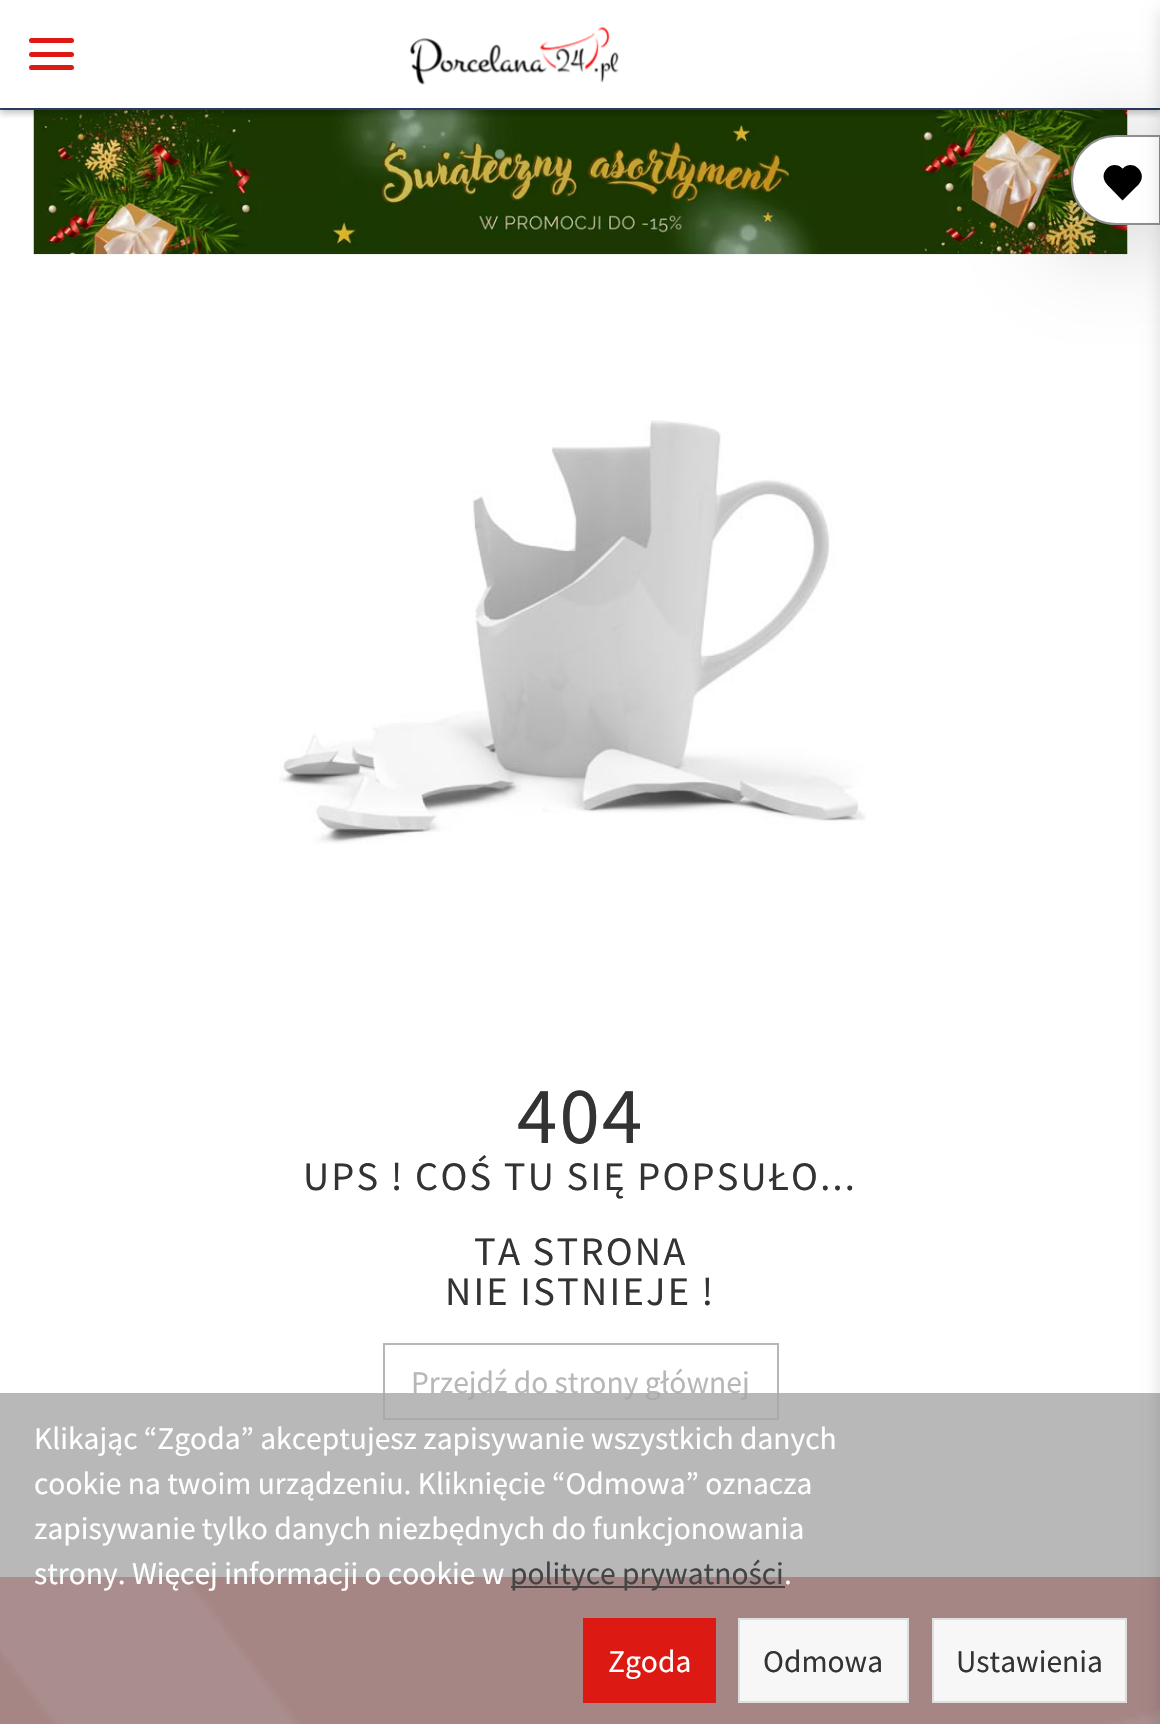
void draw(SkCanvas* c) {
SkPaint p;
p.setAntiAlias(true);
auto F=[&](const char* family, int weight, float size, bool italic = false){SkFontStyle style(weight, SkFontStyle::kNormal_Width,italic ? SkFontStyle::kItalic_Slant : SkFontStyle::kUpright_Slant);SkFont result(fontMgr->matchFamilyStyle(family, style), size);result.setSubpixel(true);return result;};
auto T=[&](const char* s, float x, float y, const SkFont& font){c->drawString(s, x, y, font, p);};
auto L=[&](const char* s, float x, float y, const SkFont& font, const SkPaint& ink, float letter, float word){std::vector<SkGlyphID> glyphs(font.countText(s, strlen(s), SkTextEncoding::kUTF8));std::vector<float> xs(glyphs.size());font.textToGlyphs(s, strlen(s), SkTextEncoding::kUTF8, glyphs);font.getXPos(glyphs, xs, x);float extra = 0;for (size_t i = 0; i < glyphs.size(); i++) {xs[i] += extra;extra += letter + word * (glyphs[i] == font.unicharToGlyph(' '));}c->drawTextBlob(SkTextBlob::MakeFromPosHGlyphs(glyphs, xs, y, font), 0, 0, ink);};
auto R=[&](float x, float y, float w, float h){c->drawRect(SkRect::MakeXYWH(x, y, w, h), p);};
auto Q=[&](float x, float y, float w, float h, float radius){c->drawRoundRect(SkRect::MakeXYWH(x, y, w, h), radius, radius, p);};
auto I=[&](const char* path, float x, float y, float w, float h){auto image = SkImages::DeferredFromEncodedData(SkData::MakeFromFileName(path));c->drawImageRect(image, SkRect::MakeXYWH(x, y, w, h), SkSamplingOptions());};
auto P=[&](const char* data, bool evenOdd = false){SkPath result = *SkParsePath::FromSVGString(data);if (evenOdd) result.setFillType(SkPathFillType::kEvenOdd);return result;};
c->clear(0xffffffff);
p.setColor(0xff354b7a);
R(0,108,1160,2);
I("2.png",33,110,1095,145);
c->save();
c->clipRect(SkRect::MakeXYWH(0,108,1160,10));
p.setColor(0x40000000);
p.setMaskFilter(SkMaskFilter::MakeBlur(kNormal_SkBlurStyle, 3.5));
c->drawRect(SkRect::MakeXYWH(0,5,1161,108),p);
p.setMaskFilter(nullptr);
c->restore();
p.setColor(0xffdc1912);
Q(29,38,45,5,2.5);
Q(29,52,45,5,2.5);
Q(29,65,45,5,2.5);
I("1.png",410,27,209,58);
p.setColor(0x59000000);
p.setMaskFilter(SkMaskFilter::MakeBlur(kNormal_SkBlurStyle, 50.5));
c->drawRoundRect(SkRect::MakeXYWH(1071,144,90,90),45,45,p);
p.setMaskFilter(nullptr);
p.setColor(0xffffffff);
c->drawPath(P("M1116 136h44v88h-44c-24.5 0-44-19.5-44-44c0-24.5 19.5-44 44-44z"),p);
p.setStroke(true);
p.setStrokeWidth(2);
p.setColor(0xff8f8f8f);
c->drawPath(P("M1116 136h44v88h-44c-24.5 0-44-19.5-44-44c0-24.5 19.5-44 44-44z"),p);
p.setStroke(false);
p.setColor(0xff000000);
c->drawPath(P("M1107 184.5l16-16l15.5 16l-16 16z"),p);
c->drawPath(P("M1107 168.5c10.5-10.5 26 5.5 16 16c-10.5 10.5-26.5-5.5-16-16z"),p);
c->drawPath(P("M1123 168.5c10-10.5 26 5.5 15.5 16c-10.5 10.5-26-5.5-15.5-16z"),p);
I("3.png",279,420,587,424);
auto f1 = F("Source Sans Pro",400,81);
p.setColor(0xff333333);
L("404",517,1143,f1,p,2.25,0);
auto f2 = F("Source Sans Pro",400,40.5);
L("UPS ! COŚ TU SIĘ POPSUŁO...",303,1190,f2,p,2.25,0);
L("TA STRONA",474,1265,f2,p,2.25,0);
L("NIE ISTNIEJE !",445,1305,f2,p,2.25,0);
p.setStroke(true);
p.setColor(0xffb7b7b7);
c->drawRect(SkRect::MakeXYWH(384,1344,394,75),p);
auto f3 = F("Source Sans Pro",400,31.5);
p.setStroke(false);
T("Przejdź do strony głównej",411,1393,f3);
p.setColor(0xffa20000);
R(0,1577,1160,147);
I("4.png",0,1577,1160,147);
p.setColor(0xcca6a6a6);
R(0,1393,1160,331);
p.setColor(0xffffffff);
T("Klikając “Zgoda” akceptujesz zapisywanie wszystkich danych",34,1449,f3);
T("cookie na twoim urządzeniu. Kliknięcie “Odmowa” oznacza",34,1494,f3);
T("zapisywanie tylko danych niezbędnych do funkcjonowania",34,1539,f3);
T("strony. Więcej informacji o cookie w",34,1584,f3);
p.setColor(0xff444444);
R(511,1586,274,2);
T("polityce prywatności",510,1584,f3);
p.setColor(0xffffffff);
T(".",784,1584,f3);
p.setColor(0xffdc1912);
R(583,1618,133,85);
p.setColor(0xffffffff);
T("Zgoda",608,1672,f3);
p.setColor(0xfff7f7f7);
c->drawRect(SkRect::MakeXYWH(739,1619,169,83),p);
p.setStroke(true);
p.setColor(0xffdfdfdf);
c->drawRect(SkRect::MakeXYWH(739,1619,169,83),p);
p.setStroke(false);
p.setColor(0xff333333);
T("Odmowa",763,1672,f3);
p.setColor(0xfff7f7f7);
c->drawRect(SkRect::MakeXYWH(933,1619,193,83),p);
p.setStroke(true);
p.setColor(0xffdfdfdf);
c->drawRect(SkRect::MakeXYWH(933,1619,193,83),p);
p.setStroke(false);
p.setColor(0xff333333);
T("Ustawienia",956,1672,f3);
p.setColor(0x26000000);
p.setMaskFilter(SkMaskFilter::MakeBlur(kNormal_SkBlurStyle, 9));
c->drawRect(SkRect::MakeXYWH(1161,11,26,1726),p);
p.setMaskFilter(nullptr);
}
